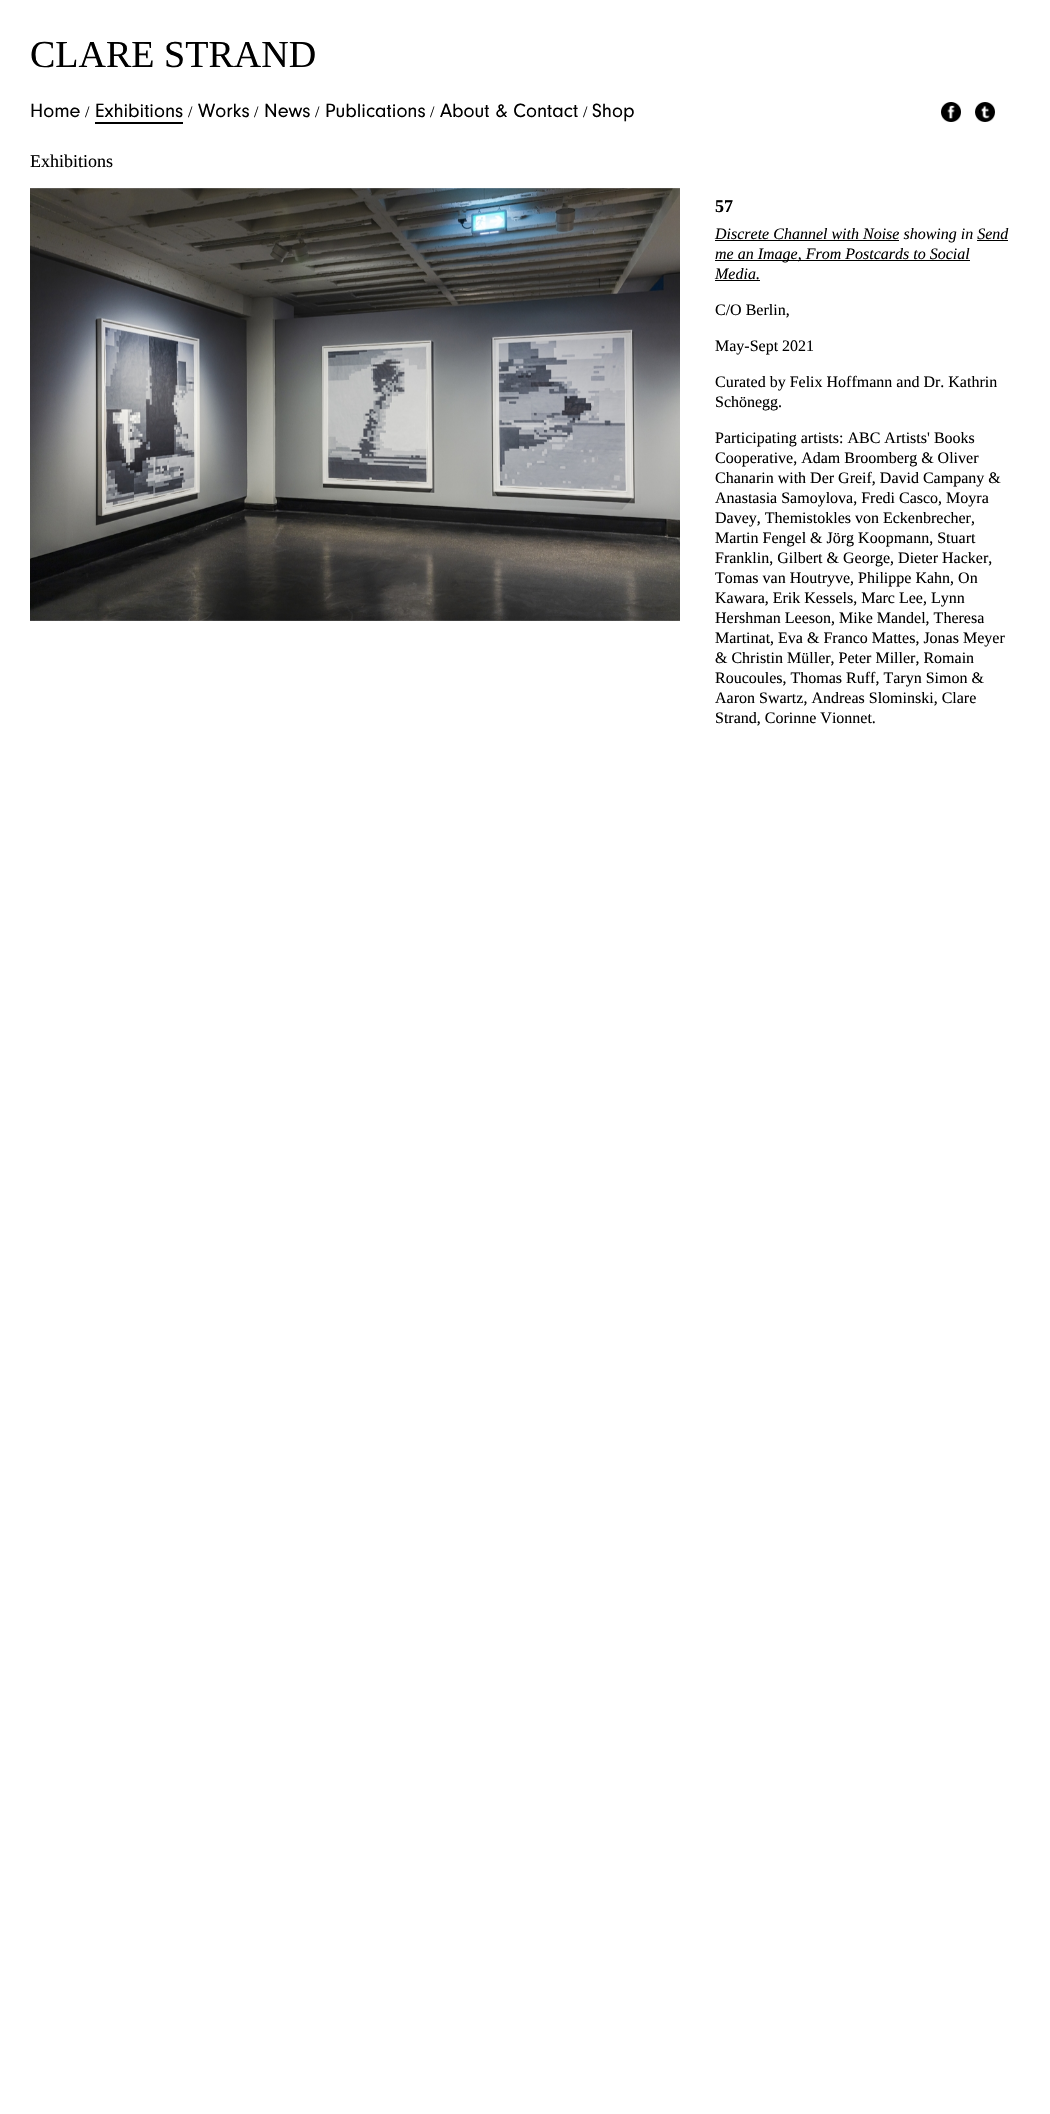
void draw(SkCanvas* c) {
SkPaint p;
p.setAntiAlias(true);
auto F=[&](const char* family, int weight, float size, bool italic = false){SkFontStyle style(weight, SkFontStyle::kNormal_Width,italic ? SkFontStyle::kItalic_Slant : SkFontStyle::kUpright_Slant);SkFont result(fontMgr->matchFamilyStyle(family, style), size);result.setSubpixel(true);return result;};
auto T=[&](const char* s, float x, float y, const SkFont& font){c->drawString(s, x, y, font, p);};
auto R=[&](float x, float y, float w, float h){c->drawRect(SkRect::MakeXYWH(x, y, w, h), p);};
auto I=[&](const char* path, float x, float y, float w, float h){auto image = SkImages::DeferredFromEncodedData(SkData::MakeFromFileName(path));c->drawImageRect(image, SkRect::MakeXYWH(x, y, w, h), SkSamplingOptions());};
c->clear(0xffffffff);
auto f1 = F("Liberation Serif",400,38);
p.setColor(0xff000000);
T("CLARE STRAND",30,67,f1);
auto f2 = F("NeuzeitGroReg",400,20);
T("Home",30,117,f2);
auto f3 = F("Liberation Serif",400,16);
T("/",85,117,f3);
T("Exhibitions",95,117,f2);
R(95,122,88,2);
T("/",188,117,f3);
T("Works",198,117,f2);
T("/",254,117,f3);
T("News",264,117,f2);
T("/",315,117,f3);
T("Publications",325,117,f2);
T("/",430,117,f3);
T("About & Contact",440,117,f2);
T("/",583,117,f3);
T("Shop",592,117,f2);
I("1.png",941,102,20,20);
I("2.png",975,102,20,20);
auto f4 = F("Liberation Serif",400,18);
T("Exhibitions",30,167,f4);
I("3.png",30,188,650,433);
auto f5 = F("Liberation Serif",700,18);
T("57",715,212,f5);
R(715,240,184,1);
auto f6 = F("Liberation Serif",400,16,true);
T("Discrete Channel with Noise showing in Send",715,239,f6);
R(977,240,31,1);
R(715,260,255,1);
T("me an Image, From Postcards to Social",715,259,f6);
T("Media.",715,279,f6);
R(715,280,45,1);
T("C/O Berlin,",715,315,f3);
T("May-Sept 2021",715,351,f3);
T("Curated by Felix Hoffmann and Dr. Kathrin",715,387,f3);
T("Schönegg.",715,407,f3);
T("Participating artists: ABC Artists' Books",715,443,f3);
T("Cooperative, Adam Broomberg & Oliver",715,463,f3);
T("Chanarin with Der Greif, David Campany &",715,483,f3);
T("Anastasia Samoylova, Fredi Casco, Moyra",715,503,f3);
T("Davey, Themistokles von Eckenbrecher,",715,523,f3);
T("Martin Fengel & Jörg Koopmann, Stuart",715,543,f3);
T("Franklin, Gilbert & George, Dieter Hacker,",715,563,f3);
T("Tomas van Houtryve, Philippe Kahn, On",715,583,f3);
T("Kawara, Erik Kessels, Marc Lee, Lynn",715,603,f3);
T("Hershman Leeson, Mike Mandel, Theresa",715,623,f3);
T("Martinat, Eva & Franco Mattes, Jonas Meyer",715,643,f3);
T("& Christin Müller, Peter Miller, Romain",715,663,f3);
T("Roucoules, Thomas Ruff, Taryn Simon &",715,683,f3);
T("Aaron Swartz, Andreas Slominski, Clare",715,703,f3);
T("Strand, Corinne Vionnet.",715,723,f3);
}
